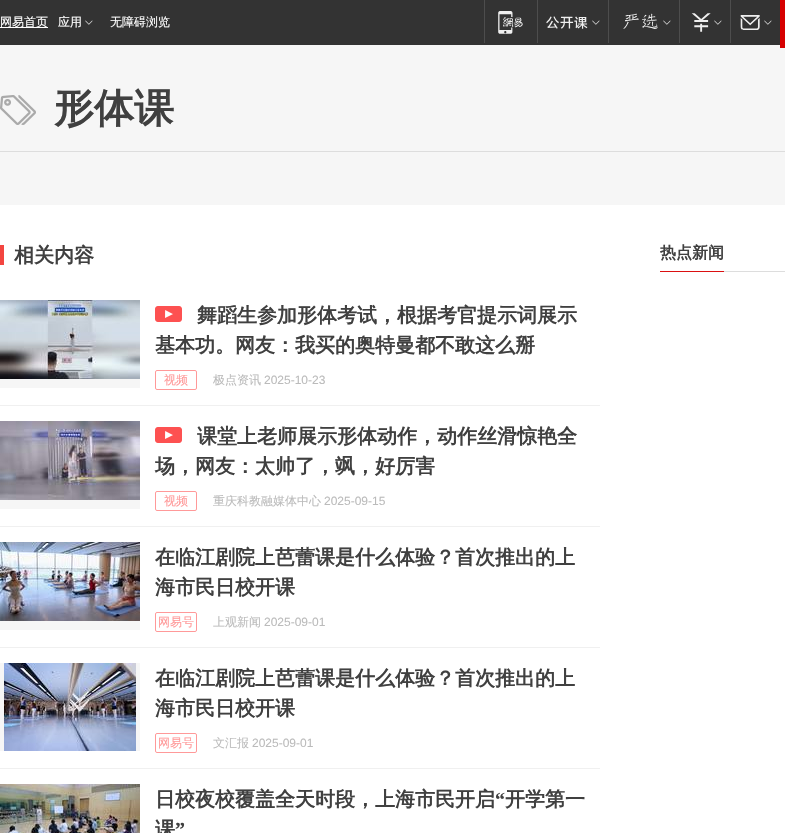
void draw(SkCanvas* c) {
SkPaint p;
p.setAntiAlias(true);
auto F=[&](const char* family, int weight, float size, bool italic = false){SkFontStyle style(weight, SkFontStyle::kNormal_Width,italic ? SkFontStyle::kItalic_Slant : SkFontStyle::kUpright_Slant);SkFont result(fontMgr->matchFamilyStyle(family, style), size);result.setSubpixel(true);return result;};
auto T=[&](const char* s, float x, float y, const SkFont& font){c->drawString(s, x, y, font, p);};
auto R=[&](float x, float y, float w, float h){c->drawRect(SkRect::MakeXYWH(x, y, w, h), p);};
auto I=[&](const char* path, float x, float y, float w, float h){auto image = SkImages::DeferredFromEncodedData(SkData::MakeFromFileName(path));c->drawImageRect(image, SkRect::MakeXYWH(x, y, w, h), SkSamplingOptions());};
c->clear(0xffffffff);
p.setColor(0xff333333);
R(0,0,780,45);
p.setColor(0xffffffff);
R(0,27,48,1);
auto f1 = F("WenQuanYi Zen Hei",500,12);
T("网易首页",0,26,f1);
T("应用",58,26,f1);
I("1.png",85,20,8,5);
T("无障碍浏览",110,26,f1);
p.setColor(0xff4d4d4d);
R(484,0,1,43);
I("2.png",498,11,25,23);
R(537,0,1,43);
I("3.png",546,16,42,13);
I("1.png",592,20,8,5);
R(608,0,1,43);
I("4.png",623,13,35,16);
I("1.png",663,20,8,5);
R(679,0,1,43);
I("5.png",691,13,20,19);
I("1.png",714,20,8,5);
R(730,0,1,43);
I("6.png",740,15,20,15);
I("1.png",764,20,8,5);
p.setColor(0xfff6f6f6);
R(0,45,785,160);
p.setColor(0xffd60000);
R(780,0,5,48);
I("7.png",0,95,36,30);
p.setColor(0xffdddddd);
R(0,151,785,1);
auto f2 = F("WenQuanYi Zen Hei",700,40);
p.setColor(0xff404040);
T("形体课",54,122,f2);
p.setColor(0xfff34540);
R(0,245,4,20);
auto f3 = F("WenQuanYi Zen Hei",700,20);
p.setColor(0xff404040);
T("相关内容",14,262,f3);
p.setColor(0xfff0f0f0);
R(0,405,600,1);
p.setColor(0xfff6f6f6);
R(0,379,140,9);
I("8.png",0,300,140,79);
I("9.png",155,306,27,16);
p.setColor(0xff404040);
T("舞蹈生参加形体考试，根据考官提示词展示",197,322,f3);
T("基本功。网友：我买的奥特曼都不敢这么掰",155,352,f3);
p.setStroke(true);
p.setStrokeWidth(1);
p.setColor(0xffff9999);
c->drawRoundRect(SkRect::MakeXYWH(155.5,370.5,41,19),1.5,1.5,p);
p.setStroke(false);
T("视频",164,384,f1);
p.setColor(0xffbbbbbb);
T("极点资讯",213,384,f1);
auto f4 = F("Liberation Sans",400,12);
T("2025-10-23",264,384,f4);
p.setColor(0xfff0f0f0);
R(0,526,600,1);
p.setColor(0xfff6f6f6);
R(0,500,140,9);
I("10.png",0,421,140,79);
I("9.png",155,427,27,16);
p.setColor(0xff404040);
T("课堂上老师展示形体动作，动作丝滑惊艳全",197,443,f3);
T("场，网友：太帅了，飒，好厉害",155,473,f3);
p.setStroke(true);
p.setColor(0xffff9999);
c->drawRoundRect(SkRect::MakeXYWH(155.5,491.5,41,19),1.5,1.5,p);
p.setStroke(false);
T("视频",164,505,f1);
p.setColor(0xffbbbbbb);
T("重庆科教融媒体中心",213,505,f1);
T("2025-09-15",324,505,f4);
p.setColor(0xfff0f0f0);
R(0,647,600,1);
p.setColor(0xfff6f6f6);
R(0,621,140,9);
I("11.png",0,542,140,79);
p.setColor(0xff404040);
T("在临江剧院上芭蕾课是什么体验？首次推出的上",155,564,f3);
T("海市民日校开课",155,594,f3);
p.setStroke(true);
p.setColor(0xffff9999);
c->drawRoundRect(SkRect::MakeXYWH(155.5,612.5,41,19),1.5,1.5,p);
p.setStroke(false);
T("网易号",158,626,f1);
p.setColor(0xffbbbbbb);
T("上观新闻",213,626,f1);
T("2025-09-01",264,626,f4);
p.setColor(0xfff0f0f0);
R(0,768,600,1);
p.setColor(0xfff6f6f6);
R(0,663,140,88);
I("12.png",4,663,132,88);
p.setColor(0xff404040);
T("在临江剧院上芭蕾课是什么体验？首次推出的上",155,685,f3);
T("海市民日校开课",155,715,f3);
p.setStroke(true);
p.setColor(0xffff9999);
c->drawRoundRect(SkRect::MakeXYWH(155.5,733.5,41,19),1.5,1.5,p);
p.setStroke(false);
T("网易号",158,747,f1);
p.setColor(0xffbbbbbb);
T("文汇报",213,747,f1);
T("2025-09-01",252,747,f4);
I("13.png",0,784,140,49);
p.setColor(0xff404040);
T("日校夜校覆盖全天时段，上海市民开启",155,806,f3);
auto f5 = F("Liberation Serif",700,20);
T("“",495,806,f5);
T("开学第一",505,806,f3);
T("课",155,836,f3);
T("”",175,836,f5);
p.setColor(0xffdddddd);
R(724,271,61,1);
auto f6 = F("WenQuanYi Zen Hei",700,16);
p.setColor(0xff404040);
T("热点新闻",660,258,f6);
p.setColor(0xffdb1011);
R(660,271,64,1);
}
